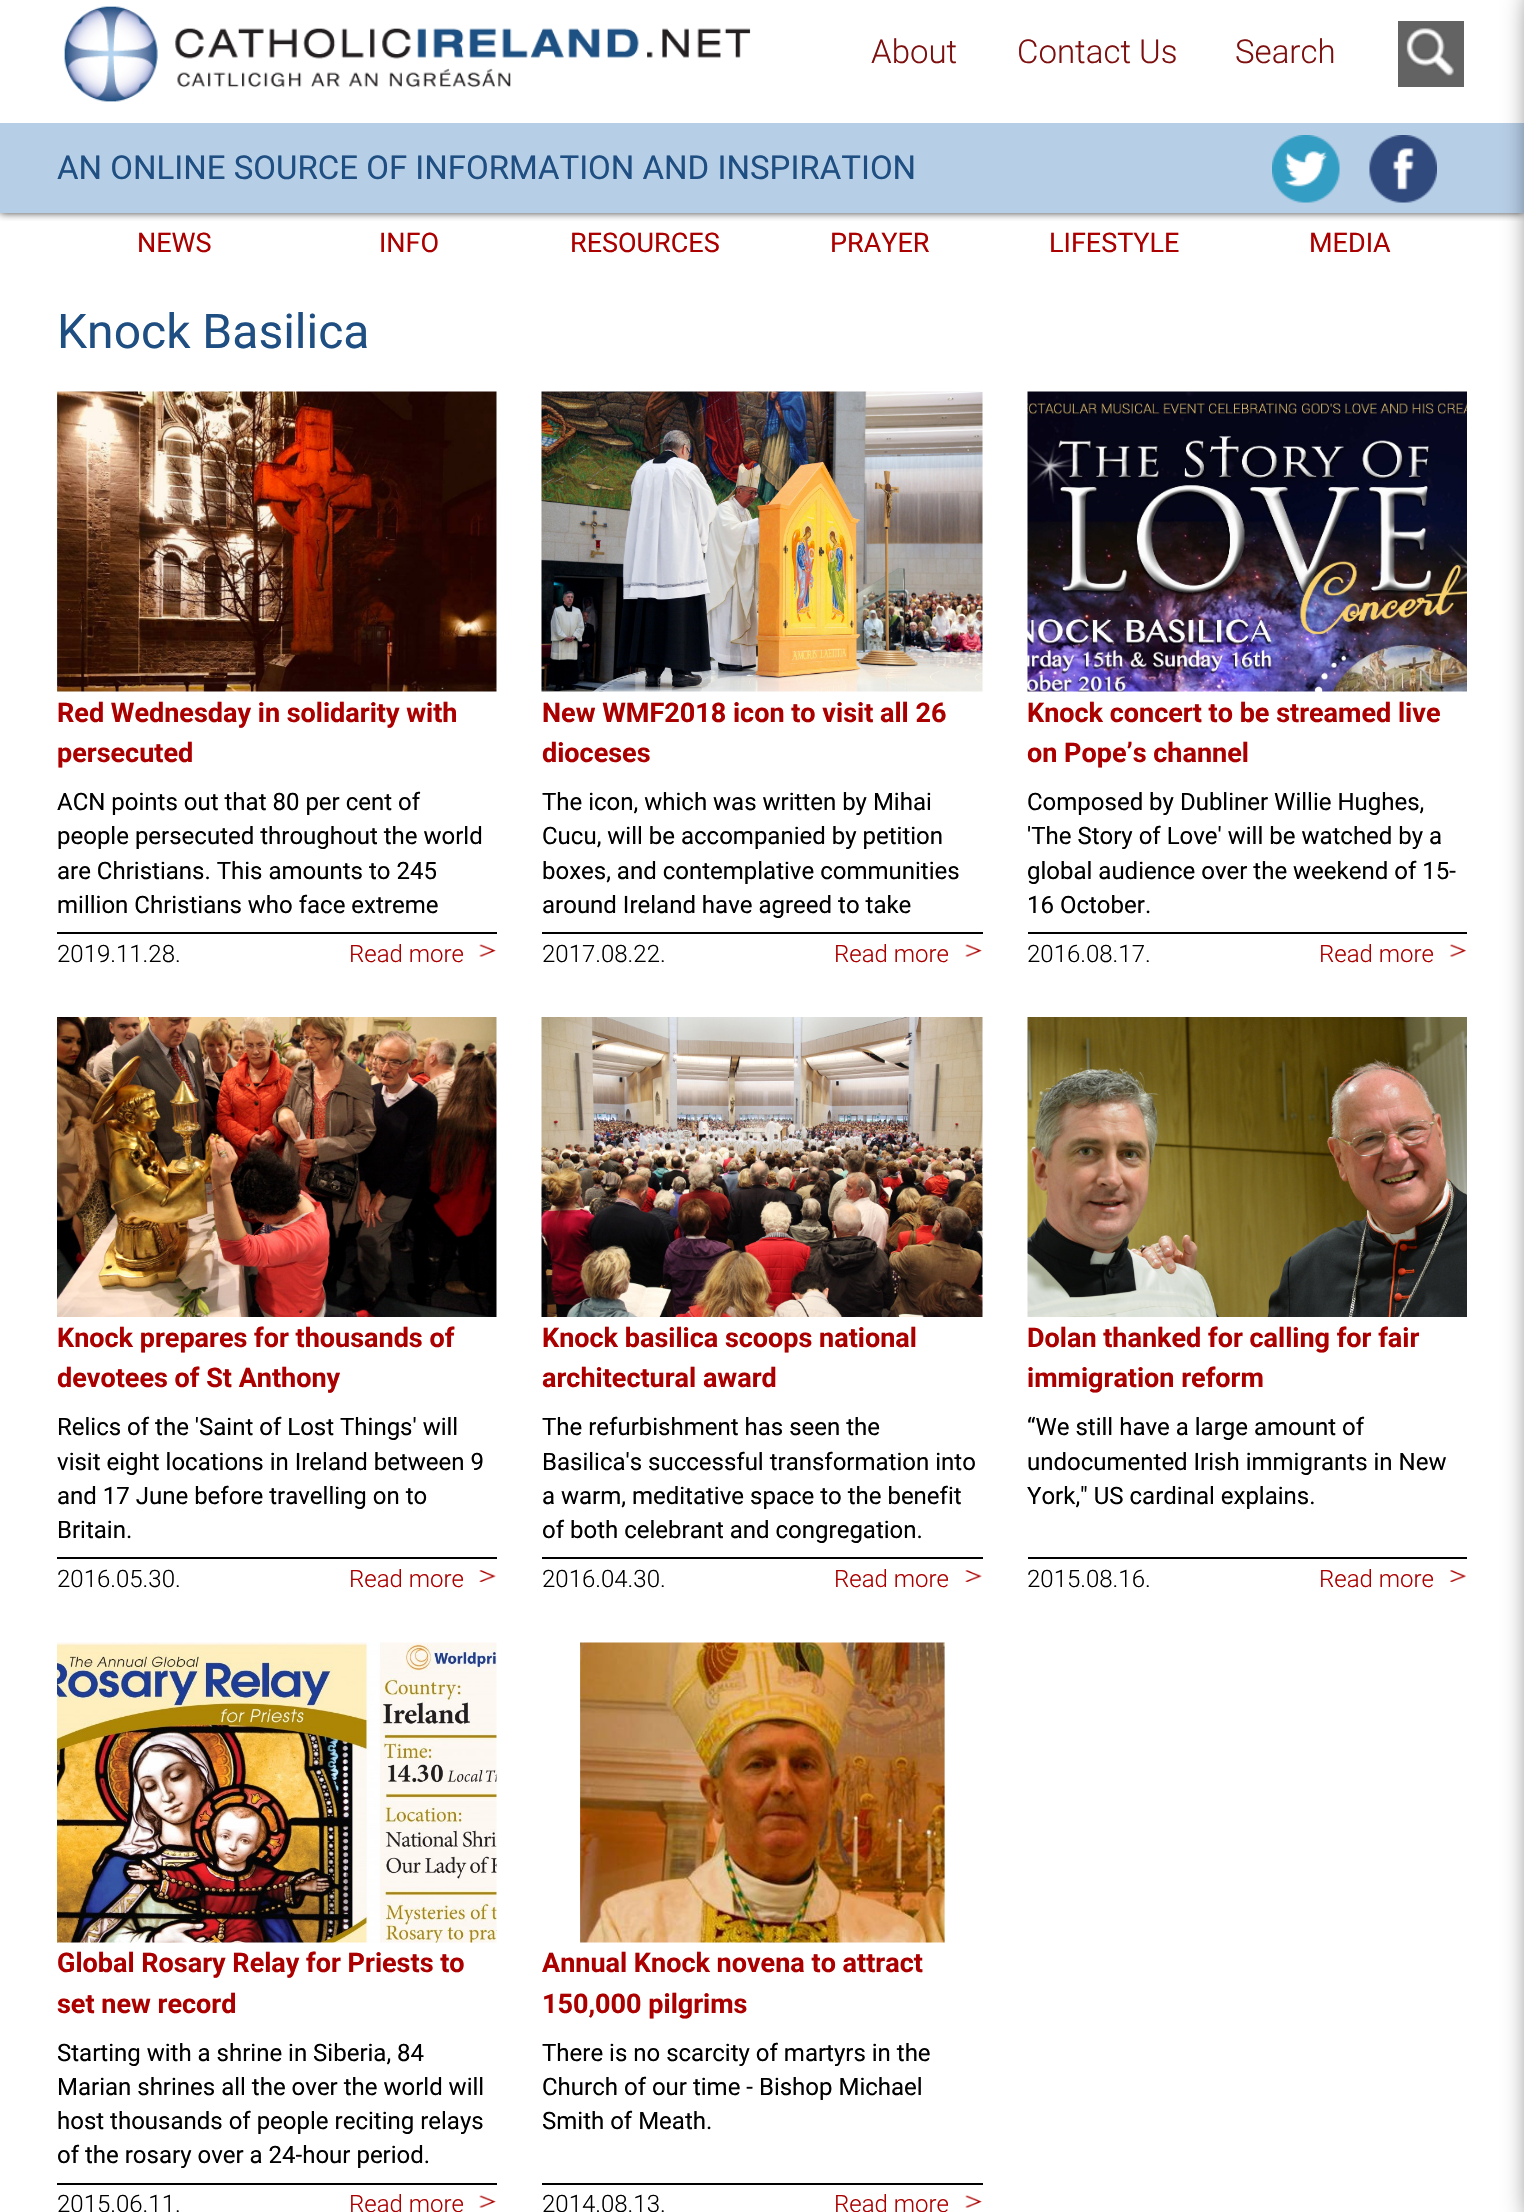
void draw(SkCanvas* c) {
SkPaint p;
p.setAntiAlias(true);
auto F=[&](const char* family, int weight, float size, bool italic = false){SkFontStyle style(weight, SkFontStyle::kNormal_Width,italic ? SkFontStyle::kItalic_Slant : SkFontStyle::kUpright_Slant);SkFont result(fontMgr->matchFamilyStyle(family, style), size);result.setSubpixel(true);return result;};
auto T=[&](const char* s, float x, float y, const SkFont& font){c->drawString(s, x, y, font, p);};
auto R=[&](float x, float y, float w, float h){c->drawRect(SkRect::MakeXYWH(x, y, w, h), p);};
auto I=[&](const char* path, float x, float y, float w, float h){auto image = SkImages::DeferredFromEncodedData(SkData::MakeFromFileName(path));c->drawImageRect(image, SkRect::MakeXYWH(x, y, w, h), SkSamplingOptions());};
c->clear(0xffffffff);
c->save();
c->clipRect(SkRect::MakeXYWH(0,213,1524,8));
p.setColor(0xbf000000);
p.setMaskFilter(SkMaskFilter::MakeBlur(kNormal_SkBlurStyle, 4));
c->drawRect(SkRect::MakeXYWH(0,0,1524,213),p);
p.setMaskFilter(nullptr);
c->restore();
I("1.png",64,6,687,96);
auto f1 = F("Roboto",300,33);
p.setColor(0xff7d0f0f);
T("About",871,63,f1);
T("Contact Us",1017,63,f1);
T("Search",1235,63,f1);
I("2.png",1398,21,66,66);
p.setColor(0xffb6cee6);
R(0,123,1524,90);
auto f2 = F("Roboto",400,33);
p.setColor(0xff1f4f82);
T("AN ONLINE SOURCE OF INFORMATION AND INSPIRATION",57,179,f2);
I("3.png",1272,135,68,68);
I("4.png",1369,135,68,68);
p.setColor(0xff000000);
p.setMaskFilter(SkMaskFilter::MakeBlur(kNormal_SkBlurStyle, 16));
c->drawRect(SkRect::MakeXYWH(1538,-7,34,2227),p);
p.setMaskFilter(nullptr);
auto f3 = F("Roboto",400,27);
p.setColor(0xffab0000);
T("NEWS",137,252,f3);
T("INFO",379,252,f3);
T("RESOURCES",570,252,f3);
T("PRAYER",830,252,f3);
T("LIFESTYLE",1049,252,f3);
T("MEDIA",1309,252,f3);
auto f4 = F("Roboto",400,48);
p.setColor(0xff1f4f82);
T("Knock Basilica",57,348,f4);
I("5.png",57,391,440,301);
auto f5 = F("Roboto",700,27);
p.setColor(0xffab0000);
T("Red Wednesday in solidarity with",57,722,f5);
T("persecuted",57,762,f5);
auto f6 = F("Roboto",400,24);
p.setColor(0xff000000);
T("ACN points out that 80 per cent of",57,810,f6);
T("people persecuted throughout the world",57,844,f6);
T("are Christians. This amounts to 245",57,879,f6);
T("million Christians who face extreme",57,913,f6);
R(57,932,440,2);
auto f7 = F("Roboto",300,24);
T("2019.11.28.",57,962,f7);
p.setColor(0xffab0000);
T("Read more",349,962,f7);
I("6.png",479,944,17,13);
I("7.png",541,391,442,301);
T("New WMF2018 icon to visit all 26",542,722,f5);
T("dioceses",542,762,f5);
p.setColor(0xff000000);
T("The icon, which was written by Mihai",542,810,f6);
T("Cucu, will be accompanied by petition",542,844,f6);
T("boxes, and contemplative communities",542,879,f6);
T("around Ireland have agreed to take",542,913,f6);
R(542,932,441,2);
T("2017.08.22.",542,962,f7);
p.setColor(0xffab0000);
T("Read more",834,962,f7);
I("6.png",965,944,17,13);
I("8.png",1027,391,440,301);
T("Knock concert to be streamed live",1027,722,f5);
T("on Pope’s channel",1027,762,f5);
p.setColor(0xff000000);
T("Composed by Dubliner Willie Hughes,",1027,810,f6);
T("'The Story of Love' will be watched by a",1027,844,f6);
T("global audience over the weekend of 15-",1027,879,f6);
T("16 October.",1027,913,f6);
R(1028,932,439,2);
T("2016.08.17.",1027,962,f7);
p.setColor(0xffab0000);
T("Read more",1319,962,f7);
I("9.png",1450,944,16,13);
I("10.png",57,1017,440,300);
T("Knock prepares for thousands of",57,1347,f5);
T("devotees of St Anthony",57,1387,f5);
p.setColor(0xff000000);
T("Relics of the 'Saint of Lost Things' will",57,1435,f6);
T("visit eight locations in Ireland between 9",57,1470,f6);
T("and 17 June before travelling on to",57,1504,f6);
T("Britain.",57,1538,f6);
R(57,1557,440,2);
T("2016.05.30.",57,1587,f7);
p.setColor(0xffab0000);
T("Read more",349,1587,f7);
I("11.png",479,1570,17,12);
I("12.png",541,1017,442,300);
T("Knock basilica scoops national",542,1347,f5);
T("architectural award",542,1387,f5);
p.setColor(0xff000000);
T("The refurbishment has seen the",542,1435,f6);
T("Basilica's successful transformation into",542,1470,f6);
T("a warm, meditative space to the benefit",542,1504,f6);
T("of both celebrant and congregation.",542,1538,f6);
R(542,1557,441,2);
T("2016.04.30.",542,1587,f7);
p.setColor(0xffab0000);
T("Read more",834,1587,f7);
I("11.png",965,1570,17,12);
I("13.png",1027,1017,440,300);
T("Dolan thanked for calling for fair",1027,1347,f5);
T("immigration reform",1027,1387,f5);
p.setColor(0xff000000);
T("“We still have a large amount of",1027,1435,f6);
T("undocumented Irish immigrants in New",1027,1470,f6);
T("York,\" US cardinal explains.",1027,1504,f6);
R(1028,1557,439,2);
T("2015.08.16.",1027,1587,f7);
p.setColor(0xffab0000);
T("Read more",1319,1587,f7);
I("14.png",1450,1570,16,12);
I("15.png",57,1642,440,301);
T("Global Rosary Relay for Priests to",57,1972,f5);
T("set new record",57,2013,f5);
p.setColor(0xff000000);
T("Starting with a shrine in Siberia, 84",57,2061,f6);
T("Marian shrines all the over the world will",57,2095,f6);
T("host thousands of people reciting relays",57,2129,f6);
T("of the rosary over a 24-hour period.",57,2163,f6);
R(57,2183,440,2);
T("2015.06.11.",57,2212,f7);
p.setColor(0xffab0000);
T("Read more",349,2212,f7);
I("16.png",479,2195,17,13);
I("17.png",580,1642,365,301);
T("Annual Knock novena to attract",542,1972,f5);
T("150,000 pilgrims",542,2013,f5);
p.setColor(0xff000000);
T("There is no scarcity of martyrs in the",542,2061,f6);
T("Church of our time - Bishop Michael",542,2095,f6);
T("Smith of Meath.",542,2129,f6);
R(542,2183,441,2);
T("2014.08.13.",542,2212,f7);
p.setColor(0xffab0000);
T("Read more",834,2212,f7);
I("16.png",965,2195,17,13);
}
